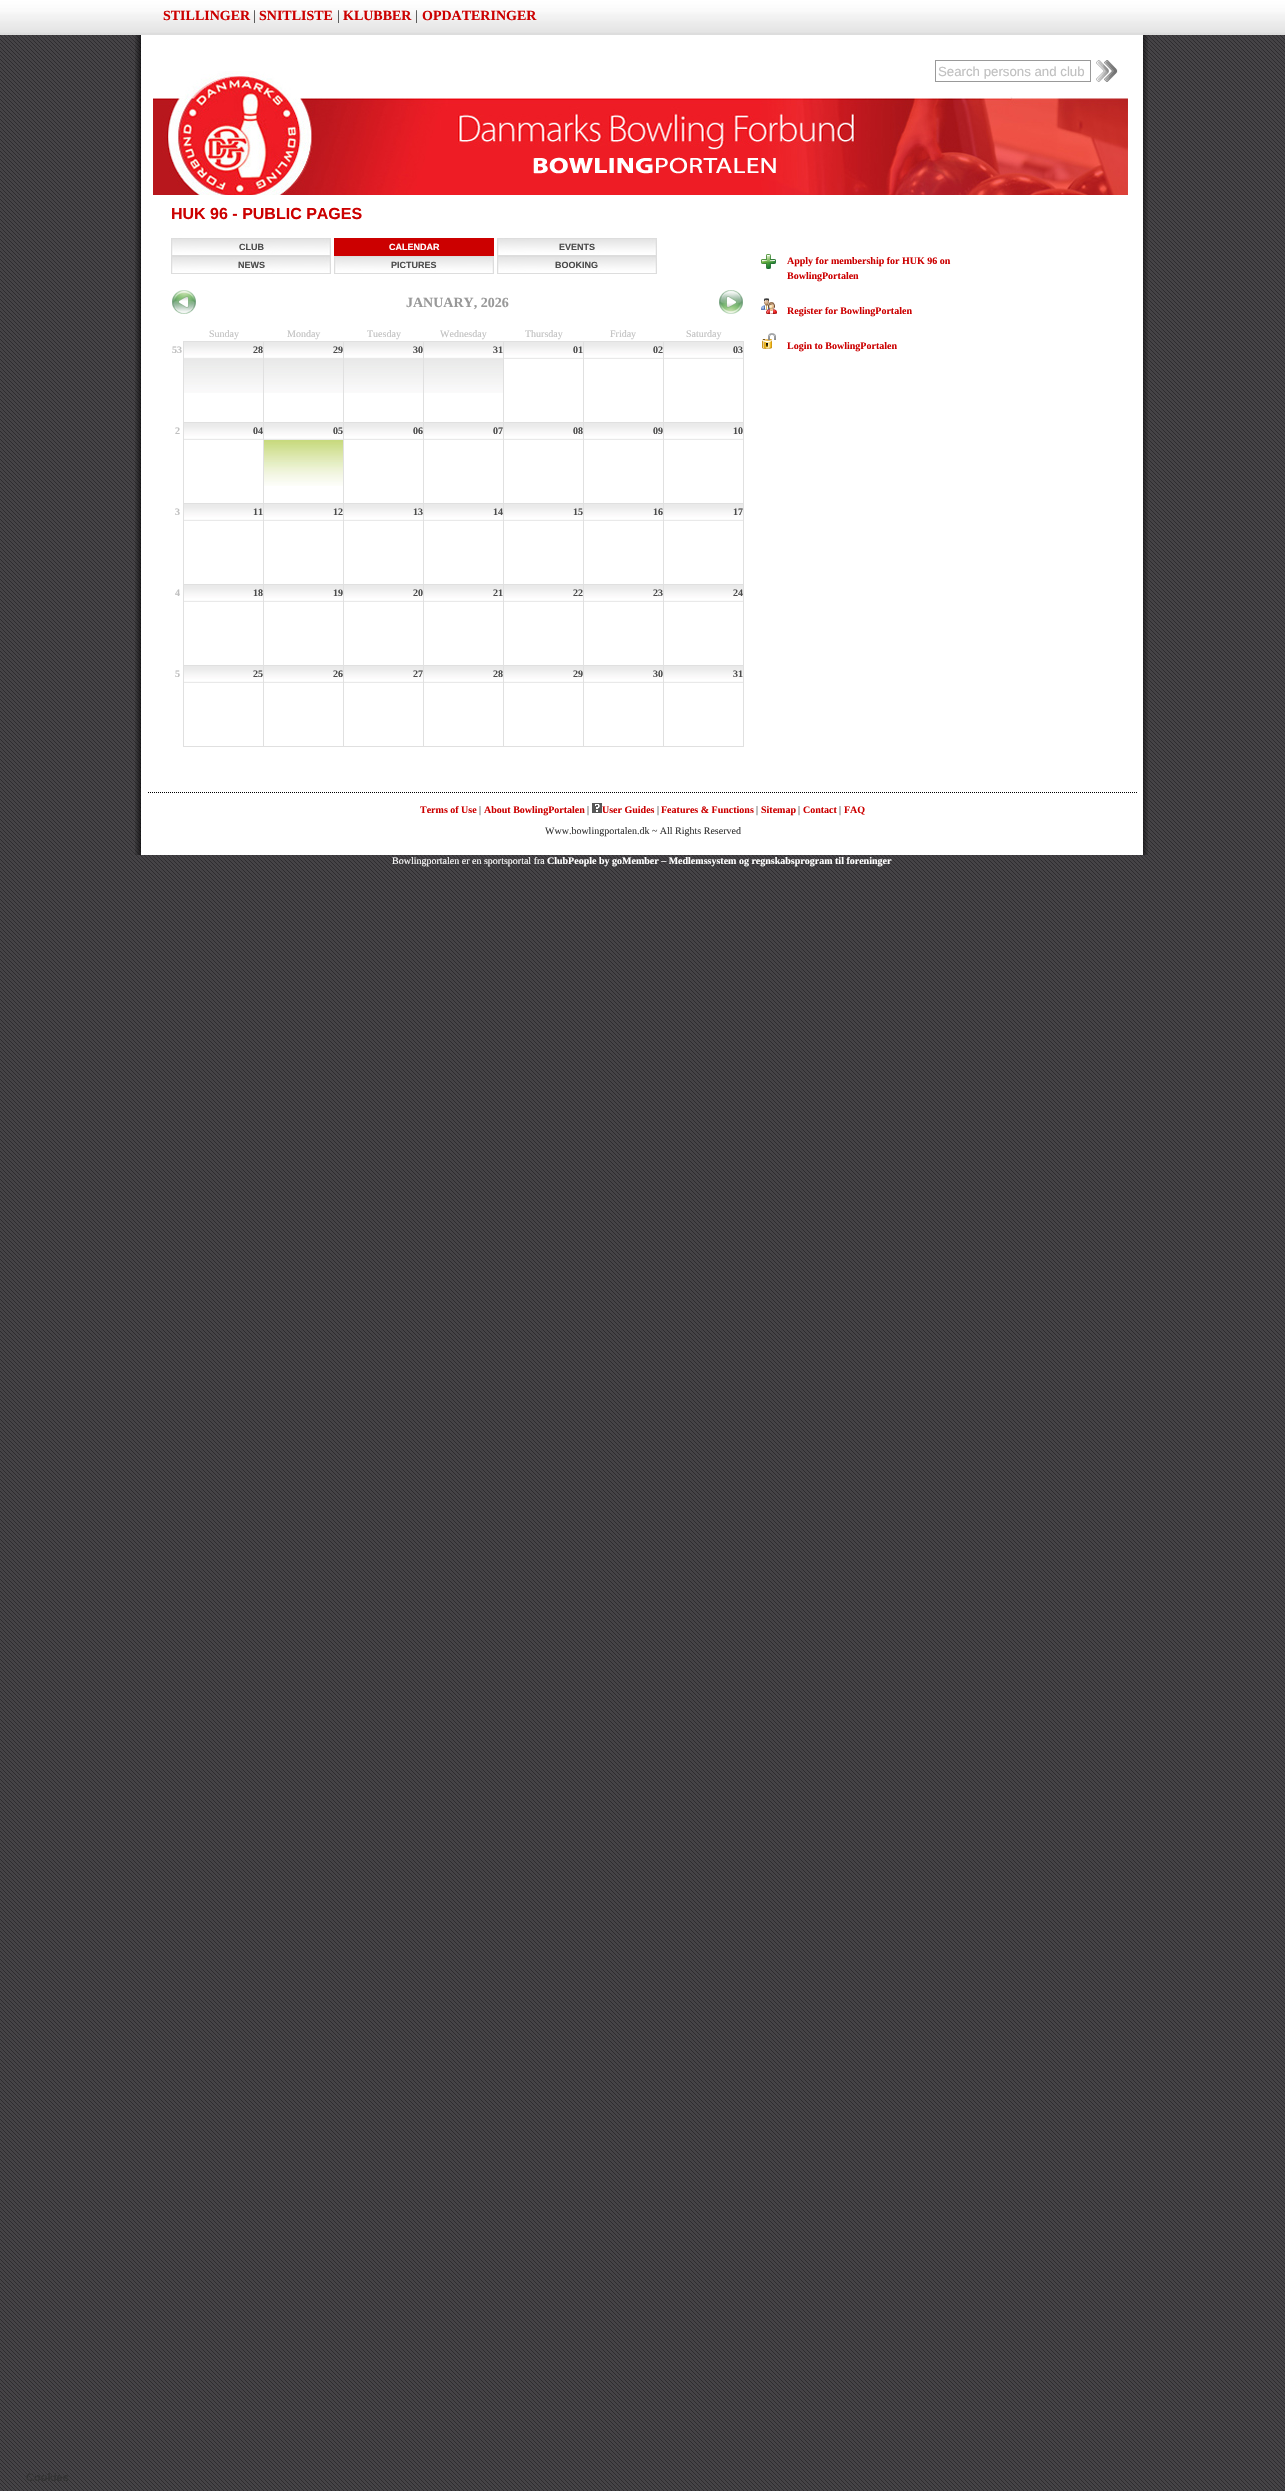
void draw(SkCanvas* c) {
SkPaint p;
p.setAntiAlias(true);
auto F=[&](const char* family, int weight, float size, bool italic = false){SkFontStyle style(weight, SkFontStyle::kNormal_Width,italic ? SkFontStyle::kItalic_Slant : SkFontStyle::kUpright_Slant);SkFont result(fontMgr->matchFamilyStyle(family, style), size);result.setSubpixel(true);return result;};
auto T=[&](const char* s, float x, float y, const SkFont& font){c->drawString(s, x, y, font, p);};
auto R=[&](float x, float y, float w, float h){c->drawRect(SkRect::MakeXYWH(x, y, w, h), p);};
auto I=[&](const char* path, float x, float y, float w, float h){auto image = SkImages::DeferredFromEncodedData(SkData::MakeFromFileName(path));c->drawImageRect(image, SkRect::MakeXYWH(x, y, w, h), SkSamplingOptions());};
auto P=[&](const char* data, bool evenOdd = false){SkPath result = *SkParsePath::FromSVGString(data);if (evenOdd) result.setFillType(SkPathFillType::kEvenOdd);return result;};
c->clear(0xffffffff);
I("1.png",0,35,1285,2456);
I("2.png",0,0,1285,35);
auto f1 = F("Liberation Serif",700,14);
p.setColor(0xffcc0000);
T("STILLINGER",163,20,f1);
auto f2 = F("Liberation Serif",400,14);
p.setColor(0xff333333);
T("|",253,20,f2);
p.setColor(0xffcc0000);
T("SNITLISTE",259,20,f1);
p.setColor(0xff333333);
T("|",337,20,f2);
p.setColor(0xffcc0000);
T("KLUBBER",343,20,f1);
p.setColor(0xff333333);
T("|",415,20,f2);
p.setColor(0xffcc0000);
T("OPDATERINGER",422,20,f1);
I("3.png",135,35,1013,820);
I("4.png",135,35,1013,820);
I("5.png",153,71,975,124);
p.setStroke(true);
p.setStrokeWidth(1);
p.setColor(0xff999999);
c->drawRect(SkRect::MakeXYWH(935.5,60.5,155,21),p);
auto f3 = F("Liberation Sans",400,13.25);
p.setStroke(false);
p.setColor(0xffc0c0c0);
T("Search persons and club",938,76,f3);
I("6.png",1096,60,22,22);
I("7.png",533,157,243,17);
auto f4 = F("Liberation Sans",700,11);
p.setColor(0xff333333);
T("Cookies",26,2481,f4);
auto f5 = F("Liberation Sans",700,16);
p.setColor(0xffcc0000);
T("HUK 96 - PUBLIC PAGES",171,219,f5);
I("8.png",171,238,160,18);
auto f6 = F("Liberation Sans",700,9);
p.setColor(0xff4b4b4b);
T("CLUB",239,250,f6);
p.setColor(0xffcc0000);
R(334,238,160,18);
p.setColor(0xffffffff);
T("CALENDAR",389,250,f6);
I("8.png",497,238,160,18);
p.setColor(0xff4b4b4b);
T("EVENTS",559,250,f6);
I("8.png",171,256,160,18);
T("NEWS",238,268,f6);
I("8.png",334,256,160,18);
T("PICTURES",391,268,f6);
I("8.png",497,256,160,18);
T("BOOKING",555,268,f6);
I("9.png",172,290,24,24);
p.setColor(0xff999999);
T("JANUARY, 2026",406,307,f1);
I("10.png",719,290,24,24);
auto f7 = F("Liberation Serif",400,10);
p.setColor(0xffc0c0c0);
T("Sunday",209,337,f7);
T("Monday",287,337,f7);
T("Tuesday",367,337,f7);
T("Wednesday",440,337,f7);
T("Thursday",525,337,f7);
T("Friday",610,337,f7);
T("Saturday",686,337,f7);
auto f8 = F("Liberation Serif",700,10);
T("53",172,353,f8);
I("11.png",184,358,79,35);
p.setColor(0xffe0e0e0);
R(663,341,81,1);
R(663,422,81,1);
R(663,503,81,1);
R(663,584,81,1);
R(663,665,81,1);
R(743,665,1,82);
R(663,746,81,1);
R(663,665,1,82);
R(583,665,81,1);
R(663,584,1,82);
R(583,584,81,1);
R(663,503,1,82);
R(583,503,81,1);
R(663,422,1,82);
R(583,422,81,1);
R(663,341,1,82);
R(583,341,81,1);
R(583,746,81,1);
R(583,665,1,82);
R(503,665,81,1);
R(583,584,1,82);
R(503,584,81,1);
R(583,503,1,82);
R(503,503,81,1);
R(583,422,1,82);
R(503,422,81,1);
R(583,341,1,82);
R(503,341,81,1);
R(503,746,81,1);
R(503,665,1,82);
R(423,665,81,1);
R(503,584,1,82);
R(423,584,81,1);
R(503,503,1,82);
R(423,503,81,1);
R(503,422,1,82);
R(423,422,81,1);
R(503,341,1,82);
R(423,341,81,1);
R(423,746,81,1);
R(423,665,1,82);
R(343,665,81,1);
R(423,584,1,82);
R(343,584,81,1);
R(423,503,1,82);
R(343,503,81,1);
R(423,422,1,82);
R(343,422,81,1);
R(423,341,1,82);
R(343,341,81,1);
R(343,746,81,1);
R(343,665,1,82);
R(263,665,81,1);
R(343,584,1,82);
R(263,584,81,1);
R(343,503,1,82);
R(263,503,81,1);
R(343,422,1,82);
R(263,422,81,1);
R(343,341,1,82);
R(263,341,81,1);
R(263,746,81,1);
R(263,665,1,82);
R(183,665,81,1);
R(263,584,1,82);
R(183,584,81,1);
R(263,503,1,82);
R(183,503,81,1);
R(263,422,1,82);
R(183,422,81,1);
R(263,341,1,82);
R(183,341,81,1);
R(183,746,81,1);
R(183,665,1,82);
R(183,584,1,82);
R(183,503,1,82);
R(183,422,1,82);
R(183,341,1,82);
I("12.png",184,342,79,16);
p.setColor(0xff4b4b4b);
T("28",253,353,f8);
I("11.png",264,358,79,35);
I("12.png",264,342,79,16);
T("29",333,353,f8);
I("11.png",344,358,79,35);
I("12.png",344,342,79,16);
T("30",413,353,f8);
I("11.png",424,358,79,35);
I("12.png",424,342,79,16);
T("31",493,353,f8);
I("13.png",504,342,79,17);
T("01",573,353,f8);
I("13.png",584,342,79,17);
T("02",653,353,f8);
p.setColor(0xffe0e0e0);
R(743,584,1,82);
R(743,503,1,82);
R(743,422,1,82);
R(743,341,1,82);
I("13.png",664,342,79,17);
p.setColor(0xff4b4b4b);
T("03",733,353,f8);
p.setColor(0xffc0c0c0);
T("2",175,434,f8);
I("13.png",184,423,79,17);
p.setColor(0xff4b4b4b);
T("04",253,434,f8);
I("14.png",264,440,79,46);
I("13.png",264,423,79,17);
T("05",333,434,f8);
I("13.png",344,423,79,17);
T("06",413,434,f8);
I("13.png",424,423,79,17);
T("07",493,434,f8);
I("13.png",504,423,79,17);
T("08",573,434,f8);
I("13.png",584,423,79,17);
T("09",653,434,f8);
I("13.png",664,423,79,17);
T("10",733,434,f8);
p.setColor(0xffc0c0c0);
T("3",175,515,f8);
I("13.png",184,504,79,17);
p.setColor(0xff4b4b4b);
T("11",253,515,f8);
I("13.png",264,504,79,17);
T("12",333,515,f8);
I("13.png",344,504,79,17);
T("13",413,515,f8);
I("13.png",424,504,79,17);
T("14",493,515,f8);
I("13.png",504,504,79,17);
T("15",573,515,f8);
I("13.png",584,504,79,17);
T("16",653,515,f8);
I("13.png",664,504,79,17);
T("17",733,515,f8);
p.setColor(0xffc0c0c0);
T("4",175,596,f8);
I("13.png",184,585,79,17);
p.setColor(0xff4b4b4b);
T("18",253,596,f8);
I("13.png",264,585,79,17);
T("19",333,596,f8);
I("13.png",344,585,79,17);
T("20",413,596,f8);
I("13.png",424,585,79,17);
T("21",493,596,f8);
I("13.png",504,585,79,17);
T("22",573,596,f8);
I("13.png",584,585,79,17);
T("23",653,596,f8);
I("13.png",664,585,79,17);
T("24",733,596,f8);
p.setColor(0xffc0c0c0);
T("5",175,677,f8);
I("13.png",184,666,79,17);
p.setColor(0xff4b4b4b);
T("25",253,677,f8);
I("13.png",264,666,79,17);
T("26",333,677,f8);
I("13.png",344,666,79,17);
T("27",413,677,f8);
I("13.png",424,666,79,17);
T("28",493,677,f8);
I("13.png",504,666,79,17);
T("29",573,677,f8);
I("13.png",584,666,79,17);
T("30",653,677,f8);
I("13.png",664,666,79,17);
T("31",733,677,f8);
I("15.png",761,254,15,15);
p.setColor(0xffcc0000);
T("Apply for membership for HUK 96 on",787,264,f8);
T("BowlingPortalen",787,279,f8);
I("16.png",761,298,16,16);
T("Register for BowlingPortalen",787,314,f8);
I("17.png",762,333,14,16);
T("Login to BowlingPortalen",787,349,f8);
p.setStroke(true);
p.setColor(0xff000000);
p.setPathEffect(SkDashPathEffect::Make({{1,1}}, 0));
c->drawPath(P("M148 792.5h989"),p);
p.setPathEffect(nullptr);
p.setStroke(false);
p.setColor(0xffcc0000);
T("Terms of Use",420,813,f8);
p.setColor(0xff333333);
T("|",479,813,f7);
p.setColor(0xffcc0000);
T("About BowlingPortalen",484,813,f8);
p.setColor(0xff333333);
T("|",587,813,f7);
I("18.png",592,803,10,10);
p.setColor(0xffcc0000);
T("User Guides",602,813,f8);
p.setColor(0xff333333);
T("|",657,813,f7);
p.setColor(0xffcc0000);
T("Features & Functions",661,813,f8);
p.setColor(0xff333333);
T("|",756,813,f7);
p.setColor(0xffcc0000);
T("Sitemap",761,813,f8);
p.setColor(0xff333333);
T("|",798,813,f7);
p.setColor(0xffcc0000);
T("Contact",803,813,f8);
p.setColor(0xff333333);
T("|",839,813,f7);
p.setColor(0xffcc0000);
T("FAQ",844,813,f8);
p.setColor(0xff333333);
T("Www.bowlingportalen.dk ~ All Rights Reserved",545,834,f7);
p.setColor(0xffffffff);
T("Bowlingportalen er en sportsportal fra",392,864,f7);
T("ClubPeople by goMember – Medlemssystem og regnskabsprogram til foreninger",547,864,f8);
}
